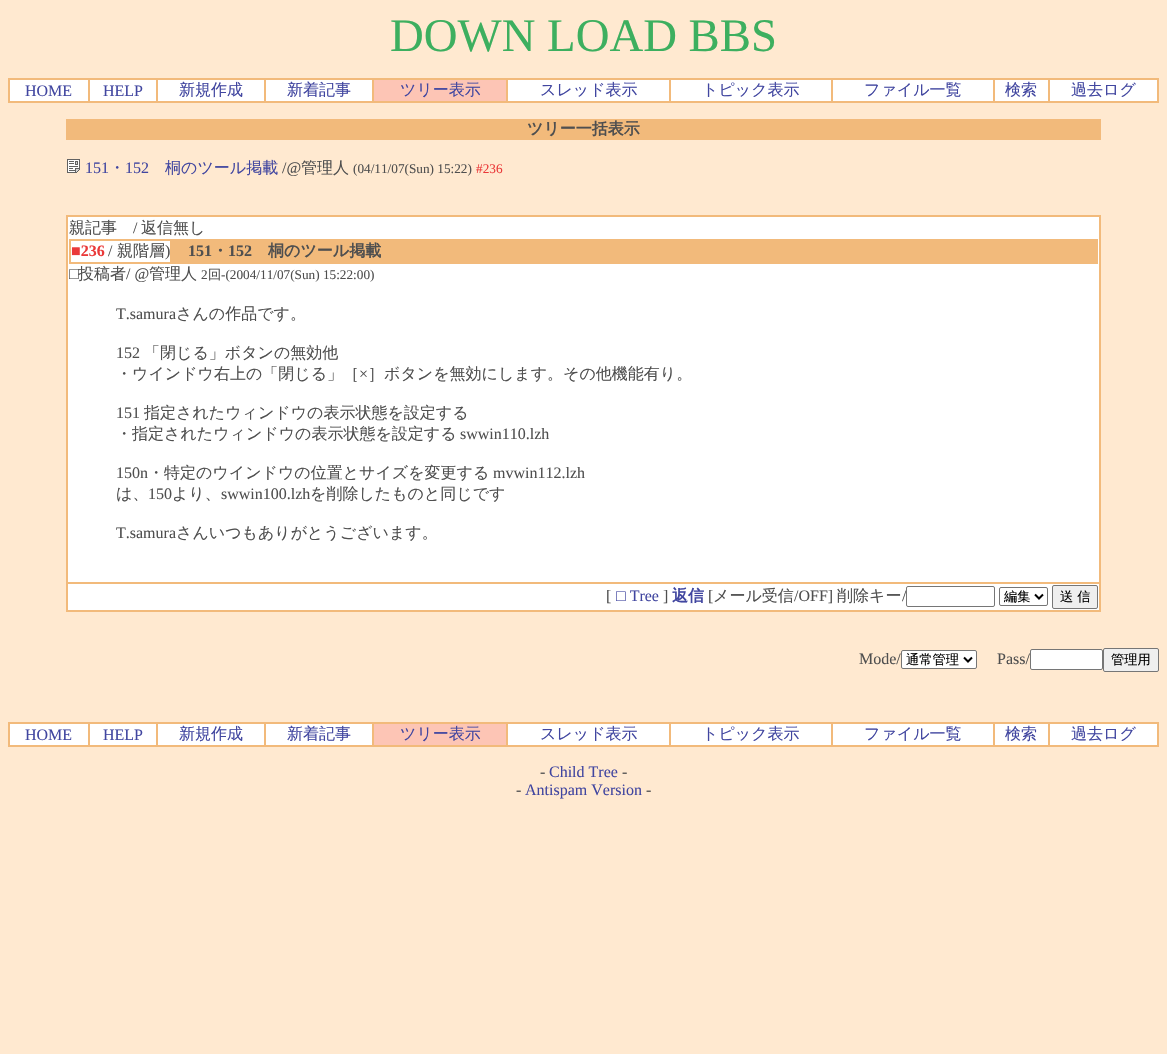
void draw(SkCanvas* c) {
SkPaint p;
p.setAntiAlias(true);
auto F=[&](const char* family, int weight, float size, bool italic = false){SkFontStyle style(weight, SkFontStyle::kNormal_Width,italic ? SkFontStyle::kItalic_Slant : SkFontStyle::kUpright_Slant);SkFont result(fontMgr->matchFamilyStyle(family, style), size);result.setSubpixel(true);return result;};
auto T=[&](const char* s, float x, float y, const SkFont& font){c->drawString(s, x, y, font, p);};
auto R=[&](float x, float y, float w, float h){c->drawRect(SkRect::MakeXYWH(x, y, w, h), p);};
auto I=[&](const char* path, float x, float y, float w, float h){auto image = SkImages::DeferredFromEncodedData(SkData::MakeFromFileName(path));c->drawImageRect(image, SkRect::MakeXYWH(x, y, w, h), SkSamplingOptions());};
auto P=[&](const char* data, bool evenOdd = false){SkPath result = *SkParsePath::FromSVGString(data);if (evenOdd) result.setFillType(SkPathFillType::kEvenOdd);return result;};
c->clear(0xffffe9d0);
auto f1 = F("Liberation Serif",400,46.75);
p.setColor(0xff3daf5f);
T("DOWN LOAD BBS",390,51,f1);
p.setStroke(true);
p.setStrokeWidth(1);
p.setColor(0xfff2ba7b);
c->drawRect(SkRect::MakeXYWH(8.5,78.5,1150,24),p);
p.setStroke(false);
p.setColor(0xffffffff);
R(10,80,1147,21);
p.setStroke(true);
p.setColor(0xfff2ba7b);
c->drawRect(SkRect::MakeXYWH(9.5,79.5,79,22),p);
auto f2 = F("Liberation Serif",400,16);
p.setStroke(false);
p.setColor(0xff4146a0);
T("HOME",25,96,f2);
p.setStroke(true);
p.setColor(0xfff2ba7b);
c->drawRect(SkRect::MakeXYWH(89.5,79.5,67,22),p);
p.setStroke(false);
p.setColor(0xff4146a0);
T("HELP",103,96,f2);
p.setStroke(true);
p.setColor(0xfff2ba7b);
c->drawRect(SkRect::MakeXYWH(157.5,79.5,107,22),p);
auto f3 = F("WenQuanYi Zen Hei",500,16);
p.setStroke(false);
p.setColor(0xff4146a0);
T("新規作成",179,95,f3);
p.setStroke(true);
p.setColor(0xfff2ba7b);
c->drawRect(SkRect::MakeXYWH(265.5,79.5,107,22),p);
p.setStroke(false);
p.setColor(0xff4146a0);
T("新着記事",287,95,f3);
p.setColor(0xfffdc5b5);
c->drawRect(SkRect::MakeXYWH(373.5,79.5,133,22),p);
p.setStroke(true);
p.setColor(0xfff2ba7b);
c->drawRect(SkRect::MakeXYWH(373.5,79.5,133,22),p);
p.setStroke(false);
p.setColor(0xff4146a0);
T("ツリー表示",400,95,f3);
p.setStroke(true);
p.setColor(0xfff2ba7b);
c->drawRect(SkRect::MakeXYWH(507.5,79.5,162,22),p);
p.setStroke(false);
p.setColor(0xff4146a0);
T("スレッド表示",540,95,f3);
p.setStroke(true);
p.setColor(0xfff2ba7b);
c->drawRect(SkRect::MakeXYWH(670.5,79.5,161,22),p);
p.setStroke(false);
p.setColor(0xff4146a0);
T("トピック表示",702,95,f3);
p.setStroke(true);
p.setColor(0xfff2ba7b);
c->drawRect(SkRect::MakeXYWH(832.5,79.5,161,22),p);
p.setStroke(false);
p.setColor(0xff4146a0);
T("ファイル一覧",864,95,f3);
p.setStroke(true);
p.setColor(0xfff2ba7b);
c->drawRect(SkRect::MakeXYWH(994.5,79.5,54,22),p);
p.setStroke(false);
p.setColor(0xff4146a0);
T("検索",1005,95,f3);
p.setStroke(true);
p.setColor(0xfff2ba7b);
c->drawRect(SkRect::MakeXYWH(1049.5,79.5,108,22),p);
p.setStroke(false);
p.setColor(0xff4146a0);
T("過去ログ",1071,95,f3);
p.setColor(0xfff2ba7b);
R(66,119,1035,21);
auto f4 = F("WenQuanYi Zen Hei",700,16);
p.setColor(0xff4f4f4f);
T("ツリー一括表示",527,134,f4);
I("1.png",67,159,13,14);
p.setColor(0xff4146a0);
T("151",85,173,f2);
T("・",109,173,f3);
T("152",125,173,f2);
T("桐のツール掲載",165,173,f3);
p.setColor(0xff4f4f4f);
T("/@",282,173,f2);
T("管理人",301,173,f3);
auto f5 = F("Liberation Serif",400,13.25);
T("(04/11/07(Sun) 15:22)",353,173,f5);
p.setColor(0xffea3939);
T("#236",476,173,f5);
p.setColor(0xffffffff);
R(68,217,1031,393);
p.setStroke(true);
p.setColor(0xfff2ba7b);
c->drawRect(SkRect::MakeXYWH(66.5,215.5,1034,396),p);
c->drawRect(SkRect::MakeXYWH(67.5,216.5,1032,366),p);
p.setStroke(false);
p.setColor(0xff4f4f4f);
T("親記事",69,233,f3);
T("/",133,233,f2);
T("返信無し",141,233,f3);
p.setStroke(true);
p.setColor(0xfff2ba7b);
c->drawRect(SkRect::MakeXYWH(69.5,239.5,1028,24),p);
c->drawRect(SkRect::MakeXYWH(70.5,240.5,100,22),p);
auto f6 = F("Liberation Serif",700,16);
p.setStroke(false);
p.setColor(0xffea3939);
T("■236",71,256,f6);
p.setColor(0xff4f4f4f);
T("/",108,256,f2);
T("親階層",117,256,f3);
T(")",165,256,f2);
p.setColor(0xfff2ba7b);
R(171,240,926,23);
p.setColor(0xff4f4f4f);
T("151",188,256,f6);
T("・",212,256,f4);
T("152",228,256,f6);
T("桐のツール掲載",268,256,f4);
T("□",69,279,f2);
T("投稿者",78,279,f3);
T("/ @",126,279,f2);
T("管理人",149,279,f3);
T("2",201,279,f5);
auto f7 = F("WenQuanYi Zen Hei",500,13.25);
T("回",208,279,f7);
T("-(2004/11/07(Sun) 15:22:00)",221,279,f5);
T("T.samura",116,319,f2);
T("さんの作品です。",176,319,f3);
T("152",116,358,f2);
T("「閉じる」ボタンの無効他",144,358,f3);
T("・ウインドウ右上の「閉じる」［",116,379,f3);
T("×",359,379,f2);
T("］ボタンを無効にします。その他機能有り。",368,379,f3);
T("151",116,418,f2);
T("指定されたウィンドウの表示状態を設定する",144,418,f3);
T("・指定されたウィンドウの表示状態を設定する",116,439,f3);
T("swwin110.lzh",460,439,f2);
T("150n",116,478,f2);
T("・特定のウインドウの位置とサイズを変更する",148,478,f3);
T("mvwin112.lzh",493,478,f2);
T("は、",116,499,f3);
T("150",148,499,f2);
T("より、",172,499,f3);
T("swwin100.lzh",221,499,f2);
T("を削除したものと同じです",310,499,f3);
T("T.samura",116,538,f2);
T("さんいつもありがとうございます。",176,538,f3);
p.setStroke(true);
p.setColor(0xfff2ba7b);
c->drawRect(SkRect::MakeXYWH(67.5,583.5,1032,27),p);
p.setStroke(false);
p.setColor(0xff4f4f4f);
T("[",606,601,f2);
p.setColor(0xff4146a0);
T("□ Tree",616,601,f2);
p.setColor(0xff4f4f4f);
T("]",663,601,f2);
p.setColor(0xff4146a0);
T("返信",672,601,f4);
p.setColor(0xff4f4f4f);
T("[",708,601,f2);
T("メール受信",713,601,f3);
T("/OFF]",794,601,f2);
T("削除キー",837,601,f3);
T("/",902,601,f2);
p.setStroke(true);
p.setColor(0xff767676);
c->drawRoundRect(SkRect::MakeXYWH(906.5,586.5,88,20),1.5,1.5,p);
c->drawRoundRect(SkRect::MakeXYWH(999.5,587.5,48,18),1.5,1.5,p);
p.setStrokeWidth(2);
p.setColor(0xff000000);
c->drawPath(P("M1035 594.5l4 4l4-4"),p);
p.setStroke(false);
T("編集",1004,601,f7);
p.setColor(0xffefefef);
c->drawRoundRect(SkRect::MakeXYWH(1052.5,585.5,45,23),1.5,1.5,p);
p.setStroke(true);
p.setStrokeWidth(1);
p.setColor(0xff767676);
c->drawRoundRect(SkRect::MakeXYWH(1052.5,585.5,45,23),1.5,1.5,p);
p.setStroke(false);
p.setColor(0xff000000);
T("送 信",1060,601,f7);
p.setColor(0xff4f4f4f);
T("Mode/",859,664,f2);
p.setColor(0xffffffff);
c->drawRoundRect(SkRect::MakeXYWH(901.5,650.5,75,18),1.5,1.5,p);
p.setStroke(true);
p.setColor(0xff767676);
c->drawRoundRect(SkRect::MakeXYWH(901.5,650.5,75,18),1.5,1.5,p);
p.setStrokeWidth(2);
p.setColor(0xff000000);
c->drawPath(P("M964 657.5l4 4l4-4"),p);
p.setStroke(false);
T("通常管理",906,664,f7);
p.setColor(0xff4f4f4f);
T("Pass/",997,664,f2);
p.setColor(0xffffffff);
c->drawRoundRect(SkRect::MakeXYWH(1030.5,649.5,72,20),1.5,1.5,p);
p.setStroke(true);
p.setStrokeWidth(1);
p.setColor(0xff767676);
c->drawRoundRect(SkRect::MakeXYWH(1030.5,649.5,72,20),1.5,1.5,p);
p.setStroke(false);
p.setColor(0xffefefef);
c->drawRoundRect(SkRect::MakeXYWH(1103.5,648.5,55,23),1.5,1.5,p);
p.setStroke(true);
p.setColor(0xff767676);
c->drawRoundRect(SkRect::MakeXYWH(1103.5,648.5,55,23),1.5,1.5,p);
p.setStroke(false);
p.setColor(0xff000000);
T("管理用",1111,664,f7);
p.setStroke(true);
p.setColor(0xfff2ba7b);
c->drawRect(SkRect::MakeXYWH(8.5,722.5,1150,24),p);
p.setStroke(false);
p.setColor(0xffffffff);
R(10,724,1147,21);
p.setStroke(true);
p.setColor(0xfff2ba7b);
c->drawRect(SkRect::MakeXYWH(9.5,723.5,79,22),p);
p.setStroke(false);
p.setColor(0xff4146a0);
T("HOME",25,740,f2);
p.setStroke(true);
p.setColor(0xfff2ba7b);
c->drawRect(SkRect::MakeXYWH(89.5,723.5,67,22),p);
p.setStroke(false);
p.setColor(0xff4146a0);
T("HELP",103,740,f2);
p.setStroke(true);
p.setColor(0xfff2ba7b);
c->drawRect(SkRect::MakeXYWH(157.5,723.5,107,22),p);
p.setStroke(false);
p.setColor(0xff4146a0);
T("新規作成",179,739,f3);
p.setStroke(true);
p.setColor(0xfff2ba7b);
c->drawRect(SkRect::MakeXYWH(265.5,723.5,107,22),p);
p.setStroke(false);
p.setColor(0xff4146a0);
T("新着記事",287,739,f3);
p.setColor(0xfffdc5b5);
c->drawRect(SkRect::MakeXYWH(373.5,723.5,133,22),p);
p.setStroke(true);
p.setColor(0xfff2ba7b);
c->drawRect(SkRect::MakeXYWH(373.5,723.5,133,22),p);
p.setStroke(false);
p.setColor(0xff4146a0);
T("ツリー表示",400,739,f3);
p.setStroke(true);
p.setColor(0xfff2ba7b);
c->drawRect(SkRect::MakeXYWH(507.5,723.5,162,22),p);
p.setStroke(false);
p.setColor(0xff4146a0);
T("スレッド表示",540,739,f3);
p.setStroke(true);
p.setColor(0xfff2ba7b);
c->drawRect(SkRect::MakeXYWH(670.5,723.5,161,22),p);
p.setStroke(false);
p.setColor(0xff4146a0);
T("トピック表示",702,739,f3);
p.setStroke(true);
p.setColor(0xfff2ba7b);
c->drawRect(SkRect::MakeXYWH(832.5,723.5,161,22),p);
p.setStroke(false);
p.setColor(0xff4146a0);
T("ファイル一覧",864,739,f3);
p.setStroke(true);
p.setColor(0xfff2ba7b);
c->drawRect(SkRect::MakeXYWH(994.5,723.5,54,22),p);
p.setStroke(false);
p.setColor(0xff4146a0);
T("検索",1005,739,f3);
p.setStroke(true);
p.setColor(0xfff2ba7b);
c->drawRect(SkRect::MakeXYWH(1049.5,723.5,108,22),p);
p.setStroke(false);
p.setColor(0xff4146a0);
T("過去ログ",1071,739,f3);
p.setColor(0xff4f4f4f);
T("-",540,777,f2);
p.setColor(0xff4146a0);
T("Child Tree",549,777,f2);
p.setColor(0xff4f4f4f);
T("-",622,777,f2);
T("-",516,795,f2);
p.setColor(0xff4146a0);
T("Antispam Version",525,795,f2);
p.setColor(0xff4f4f4f);
T("-",646,795,f2);
}
